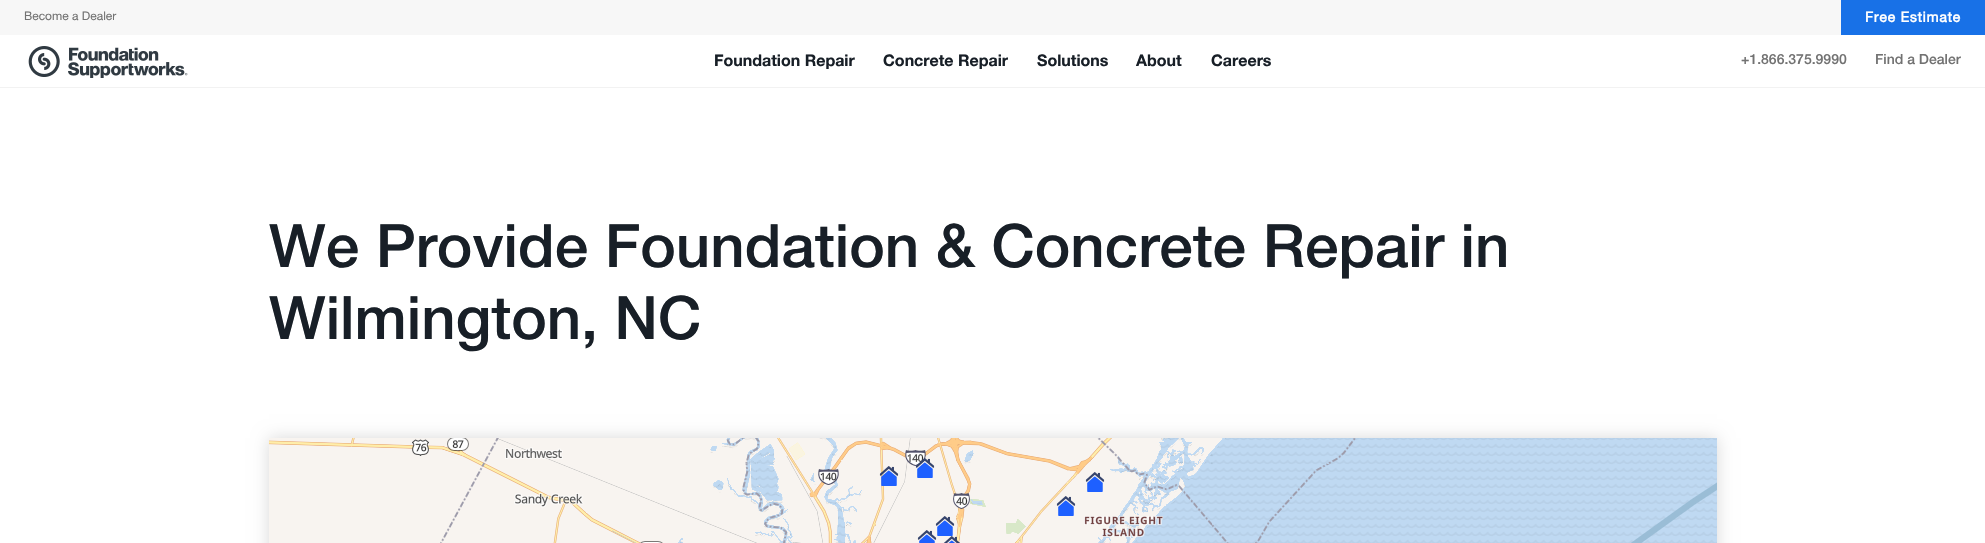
void draw(SkCanvas* c) {
SkPaint p;
p.setAntiAlias(true);
auto F=[&](const char* family, int weight, float size, bool italic = false){SkFontStyle style(weight, SkFontStyle::kNormal_Width,italic ? SkFontStyle::kItalic_Slant : SkFontStyle::kUpright_Slant);SkFont result(fontMgr->matchFamilyStyle(family, style), size);result.setSubpixel(true);return result;};
auto T=[&](const char* s, float x, float y, const SkFont& font){c->drawString(s, x, y, font, p);};
auto L=[&](const char* s, float x, float y, const SkFont& font, const SkPaint& ink, float letter, float word){std::vector<SkGlyphID> glyphs(font.countText(s, strlen(s), SkTextEncoding::kUTF8));std::vector<float> xs(glyphs.size());font.textToGlyphs(s, strlen(s), SkTextEncoding::kUTF8, glyphs);font.getXPos(glyphs, xs, x);float extra = 0;for (size_t i = 0; i < glyphs.size(); i++) {xs[i] += extra;extra += letter + word * (glyphs[i] == font.unicharToGlyph(' '));}c->drawTextBlob(SkTextBlob::MakeFromPosHGlyphs(glyphs, xs, y, font), 0, 0, ink);};
auto R=[&](float x, float y, float w, float h){c->drawRect(SkRect::MakeXYWH(x, y, w, h), p);};
auto I=[&](const char* path, float x, float y, float w, float h){auto image = SkImages::DeferredFromEncodedData(SkData::MakeFromFileName(path));c->drawImageRect(image, SkRect::MakeXYWH(x, y, w, h), SkSamplingOptions());};
c->clear(0xffffffff);
p.setColor(0xfff7f7f7);
R(0,0,1841,35);
auto f1 = F("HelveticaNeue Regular",400,12);
p.setColor(0xff727272);
T("Become a Dealer",24,20,f1);
p.setColor(0xff1871e7);
R(1841,0,144,35);
auto f2 = F("HelveticaNeue Regular",700,14);
p.setColor(0xffffffff);
L("Free Estimate",1865,22,f2,p,.75,0);
p.setColor(0xfff2f2f2);
R(0,87,1985,1);
I("1.png",28,46,160,32);
auto f3 = F("Helvetica Neue",700,16);
p.setColor(0xff181f27);
T("Foundation Repair",714,66,f3);
T("Concrete Repair",883,66,f3);
T("Solutions",1037,66,f3);
T("About",1136,66,f3);
T("Careers",1211,66,f3);
auto f4 = F("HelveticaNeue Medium",400,14);
p.setColor(0xff727272);
T("+1.866.375.9990",1741,64,f4);
T("Find a Dealer",1875,64,f4);
auto f5 = F("HelveticaNeue Medium",400,60);
p.setColor(0xff181f27);
T("We Provide Foundation & Concrete Repair in",269,267,f5);
T("Wilmington, NC",269,339,f5);
p.setColor(0x26000000);
p.setMaskFilter(SkMaskFilter::MakeBlur(kNormal_SkBlurStyle, 8));
c->drawRect(SkRect::MakeXYWH(269,438,1448,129),p);
p.setMaskFilter(nullptr);
I("2.png",269,438,1448,105);
I("3.png",879,466,20,20);
I("4.png",915,458,20,20);
I("5.png",1085,472,20,20);
I("6.png",1056,496,20,20);
I("5.png",935,516,20,20);
I("7.png",917,530,20,13);
I("8.png",943,536,17,7);
}
